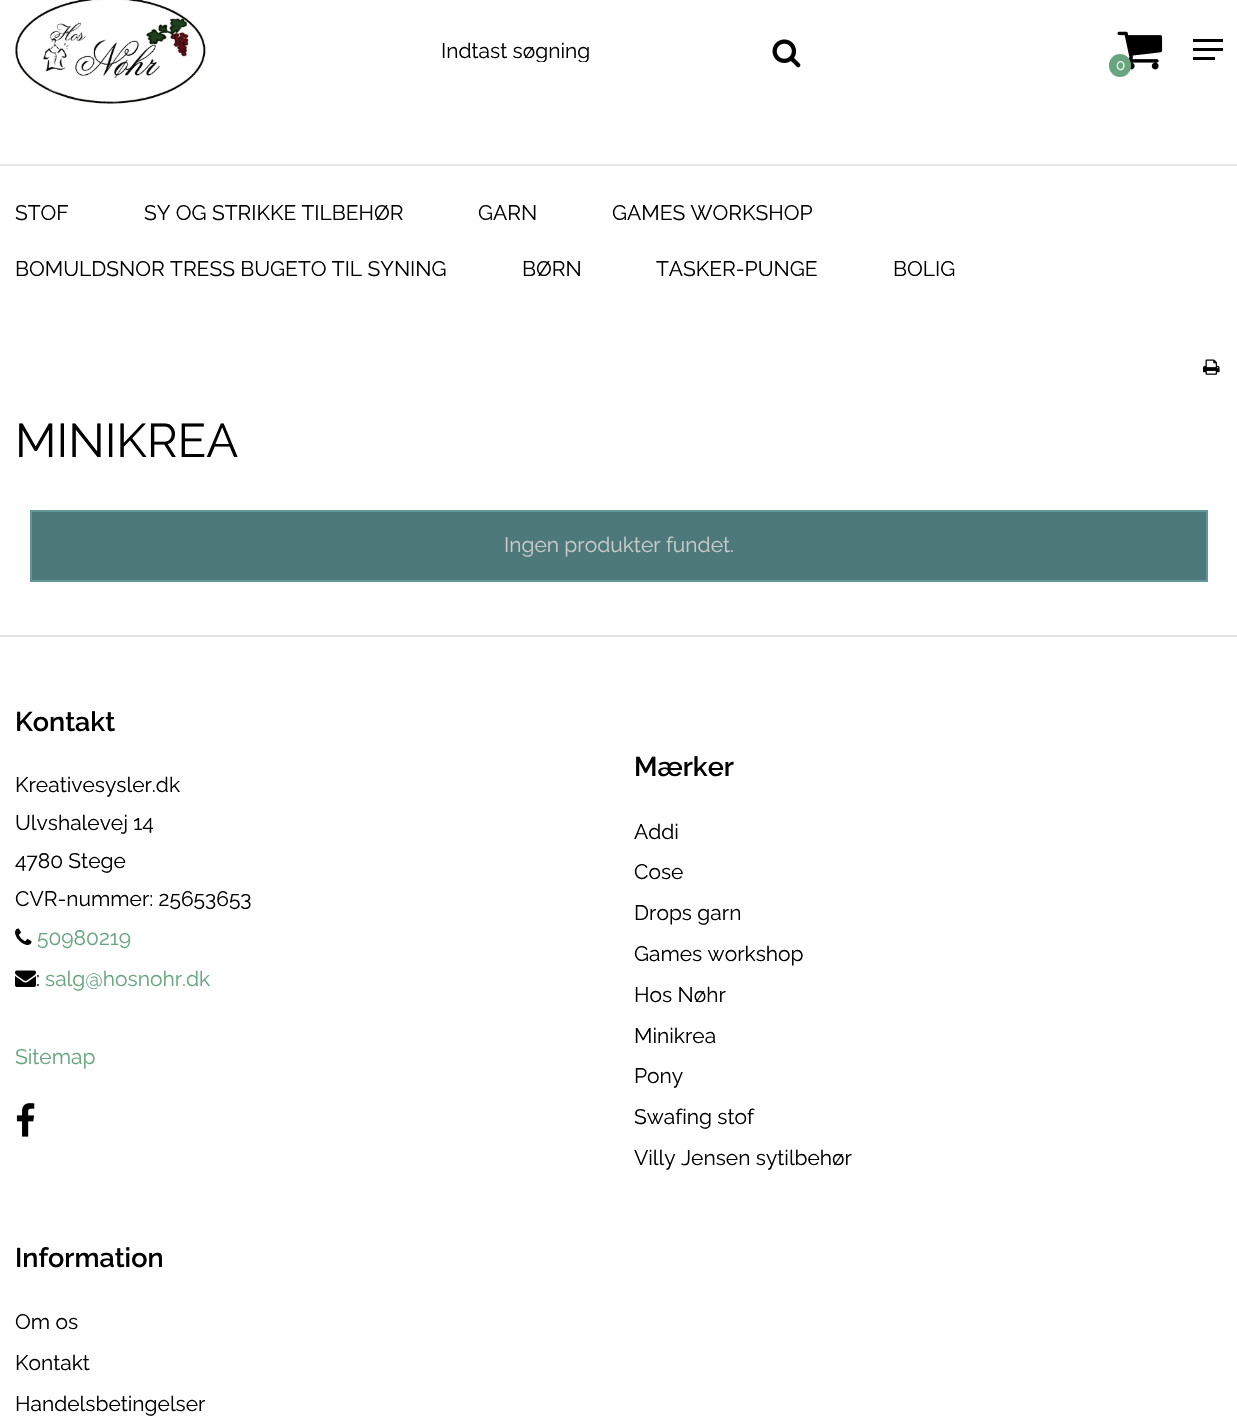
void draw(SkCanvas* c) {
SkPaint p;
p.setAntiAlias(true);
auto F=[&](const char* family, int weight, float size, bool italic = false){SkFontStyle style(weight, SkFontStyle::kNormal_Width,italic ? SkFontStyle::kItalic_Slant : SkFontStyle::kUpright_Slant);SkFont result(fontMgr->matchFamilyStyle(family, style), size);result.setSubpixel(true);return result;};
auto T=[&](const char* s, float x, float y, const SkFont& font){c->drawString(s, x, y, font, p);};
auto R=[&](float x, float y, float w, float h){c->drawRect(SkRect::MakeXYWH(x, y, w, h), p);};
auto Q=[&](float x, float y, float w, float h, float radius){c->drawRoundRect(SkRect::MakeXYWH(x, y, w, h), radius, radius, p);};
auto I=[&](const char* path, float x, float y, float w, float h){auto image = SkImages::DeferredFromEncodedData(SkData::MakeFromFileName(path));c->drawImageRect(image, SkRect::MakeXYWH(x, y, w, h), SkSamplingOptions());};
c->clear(0xffffffff);
I("1.png",15,0,191,104);
c->save();
c->clipRect(SkRect::MakeXYWH(441,38,311,24));
auto f1 = F("Raleway",400,21);
p.setColor(0xff000000);
T("Indtast søgning",441,58,f1);
c->restore();
I("2.png",772,39,29,29);
R(1193,39,30,3);
R(1193,48,30,3);
R(1193,57,22,3);
I("3.png",1117,31,46,39);
p.setColor(0xff67a57e);
Q(1109,54,22,23,11);
auto f2 = F("Raleway",400,15);
p.setColor(0xffffffff);
T("0",1116,70,f2);
p.setColor(0xffe6e6e6);
R(0,164,1237,2);
p.setColor(0xff000000);
T("STOF",15,220,f1);
T("SY OG STRIKKE TILBEHØR",144,220,f1);
T("GARN",478,220,f1);
T("GAMES WORKSHOP",612,220,f1);
T("BOMULDSNOR TRESS BUGETO TIL SYNING",15,276,f1);
T("BØRN",522,276,f1);
T("TASKER-PUNGE",656,276,f1);
T("BOLIG",893,276,f1);
I("4.png",1203,359,17,16);
auto f3 = F("Raleway",400,47.25);
T("MINIKREA",15,457,f3);
p.setColor(0xff4e797a);
c->drawRect(SkRect::MakeXYWH(31,511,1176,70),p);
p.setStroke(true);
p.setStrokeWidth(2);
p.setColor(0xff629899);
c->drawRect(SkRect::MakeXYWH(31,511,1176,70),p);
p.setStroke(false);
p.setColor(0xffcacaca);
T("Ingen produkter fundet.",504,552,f1);
p.setColor(0xffe6e6e6);
R(0,635,1237,2);
auto f4 = F("Raleway",600,27);
p.setColor(0xff000000);
T("Kontakt",15,731,f4);
T("Kreativesysler.dk",15,792,f1);
T("Ulvshalevej 14",15,830,f1);
T("4780 Stege",15,868,f1);
T("CVR-nummer: 25653653",15,906,f1);
I("5.png",15,928,17,17);
p.setColor(0xff67a57e);
T("50980219",37,945,f1);
I("6.png",15,970,21,17);
p.setColor(0xff000000);
T(":",36,986,f1);
p.setColor(0xff67a57e);
T("salg@hosnohr.dk",45,986,f1);
T("Sitemap",15,1064,f1);
I("7.png",16,1103,19,34);
p.setColor(0xff000000);
T("Mærker",634,776,f4);
T("Addi",634,839,f1);
T("Cose",634,879,f1);
T("Drops garn",634,920,f1);
T("Games workshop",634,961,f1);
T("Hos Nøhr",634,1002,f1);
T("Minikrea",634,1043,f1);
T("Pony",634,1083,f1);
T("Swafing stof",634,1124,f1);
T("Villy Jensen sytilbehør",634,1165,f1);
T("Information",15,1267,f4);
T("Om os",15,1329,f1);
T("Kontakt",15,1370,f1);
T("Handelsbetingelser",15,1411,f1);
}
